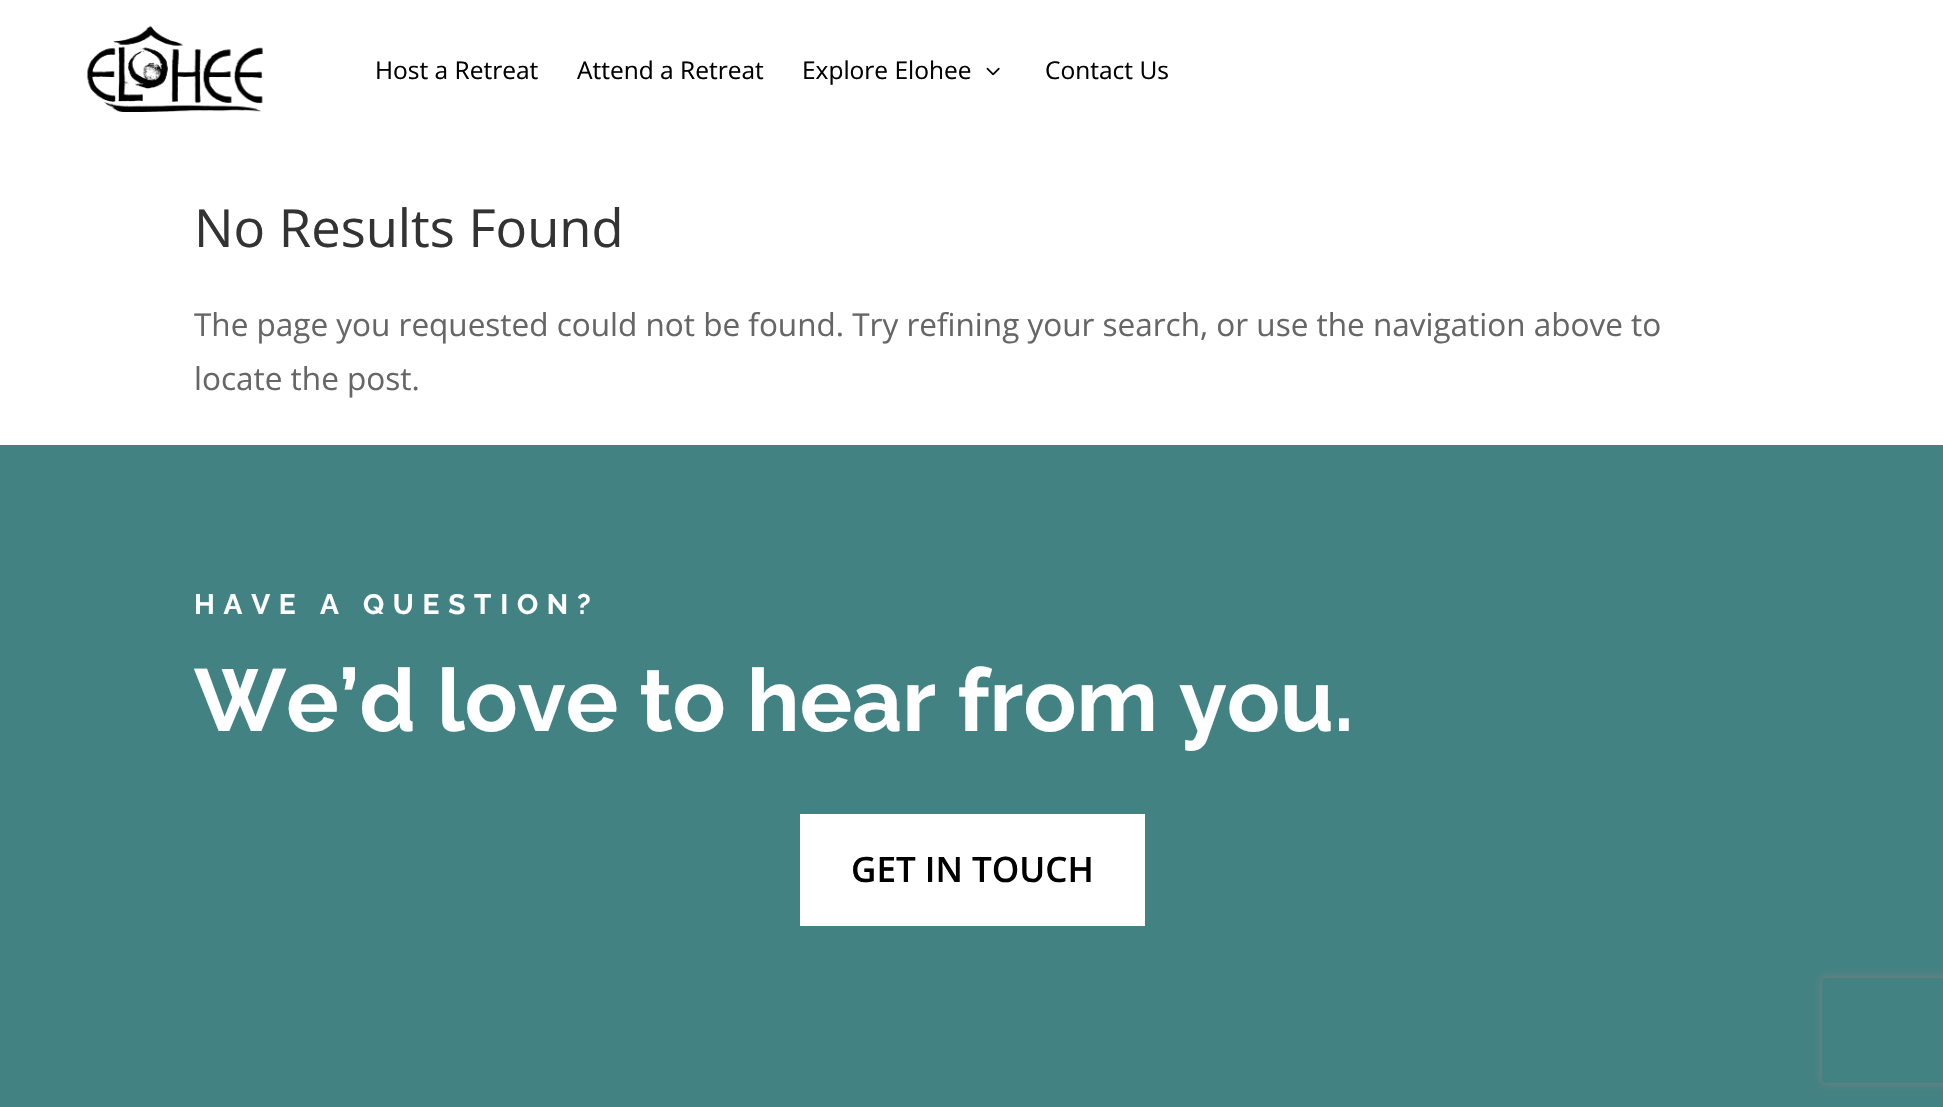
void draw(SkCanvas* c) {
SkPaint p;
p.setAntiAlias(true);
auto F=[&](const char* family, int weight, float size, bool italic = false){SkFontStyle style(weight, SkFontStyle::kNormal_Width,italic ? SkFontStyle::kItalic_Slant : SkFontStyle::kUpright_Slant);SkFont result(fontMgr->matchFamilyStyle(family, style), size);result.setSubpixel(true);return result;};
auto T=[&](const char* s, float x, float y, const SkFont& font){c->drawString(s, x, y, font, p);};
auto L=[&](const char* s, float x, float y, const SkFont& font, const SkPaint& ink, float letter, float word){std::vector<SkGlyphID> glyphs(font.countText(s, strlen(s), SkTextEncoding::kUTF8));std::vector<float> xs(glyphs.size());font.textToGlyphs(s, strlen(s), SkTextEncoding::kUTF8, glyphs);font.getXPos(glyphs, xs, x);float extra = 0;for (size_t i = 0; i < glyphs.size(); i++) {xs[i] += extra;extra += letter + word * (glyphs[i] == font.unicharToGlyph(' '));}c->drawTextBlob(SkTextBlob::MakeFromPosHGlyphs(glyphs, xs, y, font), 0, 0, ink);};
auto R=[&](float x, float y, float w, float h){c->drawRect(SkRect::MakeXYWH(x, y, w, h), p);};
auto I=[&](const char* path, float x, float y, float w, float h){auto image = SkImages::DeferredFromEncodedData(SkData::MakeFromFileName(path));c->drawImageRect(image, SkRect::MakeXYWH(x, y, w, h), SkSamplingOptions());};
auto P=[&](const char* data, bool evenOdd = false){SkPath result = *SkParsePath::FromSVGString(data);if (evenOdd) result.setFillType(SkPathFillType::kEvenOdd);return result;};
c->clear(0xffffffff);
I("1.png",87,26,176,86);
auto f1 = F("Open Sans",400,24.5);
p.setColor(0xff000000);
T("Host a Retreat",375,79,f1);
T("Attend a Retreat",577,79,f1);
T("Explore Elohee",802,79,f1);
I("2.png",986,67,14,9);
T("Contact Us",1045,79,f1);
auto f2 = F("Open Sans",400,52.5);
p.setColor(0xff333333);
T("No Results Found",194,247,f2);
auto f3 = F("Open Sans",400,31.5);
p.setColor(0xff666666);
T("The page you requested could not be found. Try refining your search, or use the navigation above to",194,336,f3);
T("locate the post.",194,390,f3);
p.setColor(0xff438282);
R(0,445,1943,662);
auto f4 = F("Raleway",700,28);
p.setColor(0xffffffff);
L("HAVE A QUESTION?",194,614,f4,p,8.75,0);
auto f5 = F("Raleway",700,87.5);
T("We’d love to hear from you.",194,731,f5);
R(800,814,345,112);
auto f6 = F("Open Sans",600,35);
p.setColor(0xff000000);
T("GET IN TOUCH",851,882,f6);
c->save();
c->clipPath(P("M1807 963h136v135h-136zm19 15h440c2 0 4 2 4 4v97c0 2-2 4-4 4h-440c-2 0-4-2-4-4v-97c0-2 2-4 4-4z",true),true);
p.setColor(0xff808080);
p.setMaskFilter(SkMaskFilter::MakeBlur(kNormal_SkBlurStyle, 4.5));
c->drawRoundRect(SkRect::MakeXYWH(1822,978,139,105),4,4,p);
p.setMaskFilter(nullptr);
c->restore();
}
